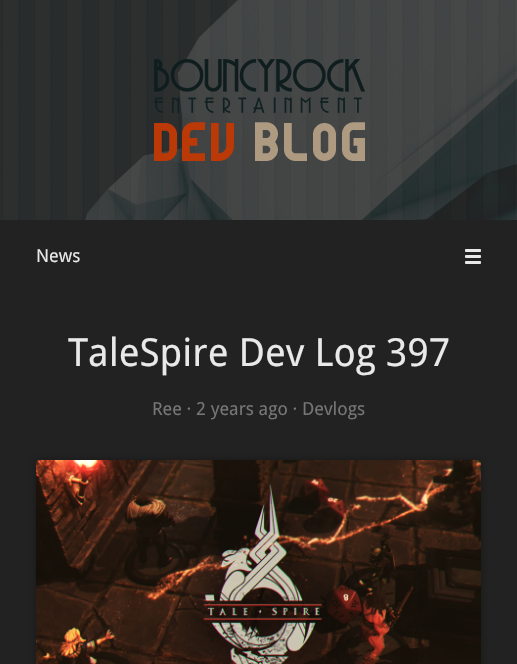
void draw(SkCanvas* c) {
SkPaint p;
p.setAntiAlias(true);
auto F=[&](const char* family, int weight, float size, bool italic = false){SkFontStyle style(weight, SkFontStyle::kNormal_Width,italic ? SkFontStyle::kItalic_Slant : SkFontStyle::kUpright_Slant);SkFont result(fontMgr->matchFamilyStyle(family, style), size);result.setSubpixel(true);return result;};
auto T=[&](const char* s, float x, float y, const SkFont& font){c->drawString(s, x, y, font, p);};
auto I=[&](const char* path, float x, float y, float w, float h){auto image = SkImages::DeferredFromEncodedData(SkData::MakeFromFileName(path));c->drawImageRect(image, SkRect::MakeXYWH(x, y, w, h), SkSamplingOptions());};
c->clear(0xff222222);
I("1.png",0,0,517,220);
I("2.png",154,59,211,102);
auto f1 = F("Droid Sans",400,18);
p.setColor(0xffe9e9e9);
T("News",36,262,f1);
I("3.png",465,249,16,15);
auto f2 = F("Droid Sans",400,38.75);
T("TaleSpire Dev Log 397",68,366,f2);
p.setColor(0xff767676);
T("Ree · 2 years ago · Devlogs",152,415,f1);
p.setColor(0x4d000000);
p.setMaskFilter(SkMaskFilter::MakeBlur(kNormal_SkBlurStyle, 5));
c->drawRoundRect(SkRect::MakeXYWH(36,460,445,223),4,4,p);
p.setMaskFilter(nullptr);
I("4.png",36,460,445,204);
}
